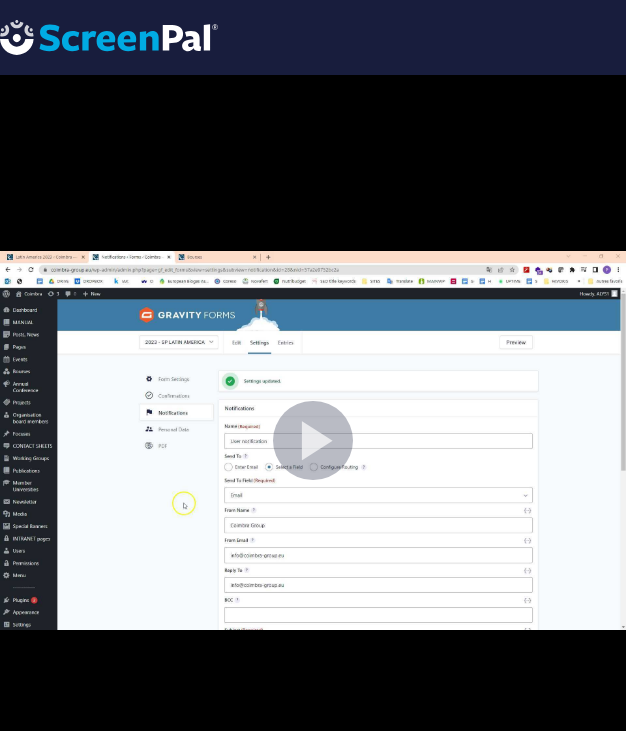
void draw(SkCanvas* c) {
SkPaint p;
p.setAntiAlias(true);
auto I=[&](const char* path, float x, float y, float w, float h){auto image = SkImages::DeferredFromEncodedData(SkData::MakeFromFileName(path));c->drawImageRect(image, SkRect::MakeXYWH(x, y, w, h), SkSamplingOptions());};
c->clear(0xff181d3d);
I("1.png",0,20,218,35);
I("2.png",0,75,626,656);
}
